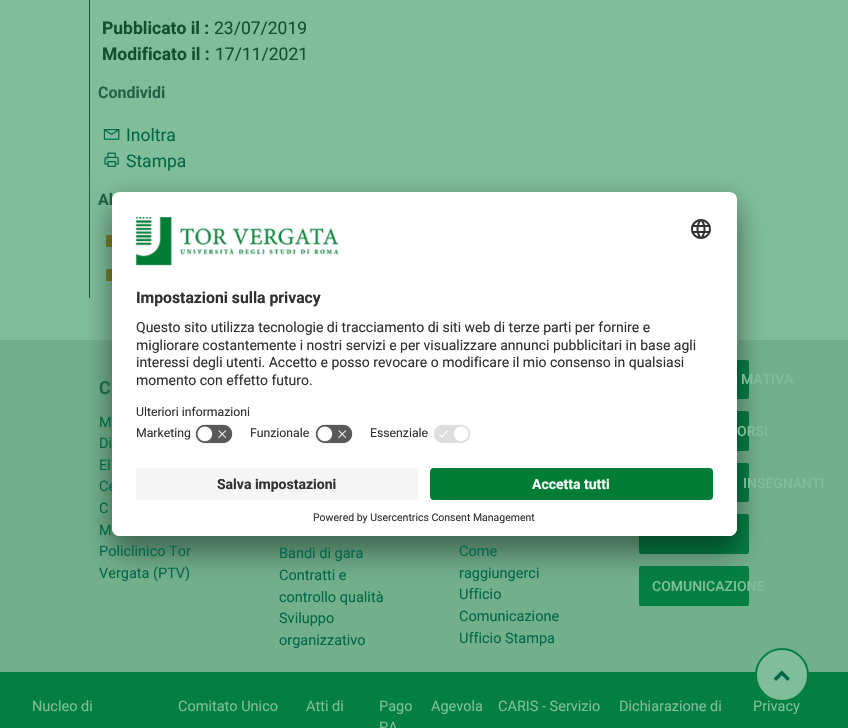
void draw(SkCanvas* c) {
SkPaint p;
p.setAntiAlias(true);
auto F=[&](const char* family, int weight, float size, bool italic = false){SkFontStyle style(weight, SkFontStyle::kNormal_Width,italic ? SkFontStyle::kItalic_Slant : SkFontStyle::kUpright_Slant);SkFont result(fontMgr->matchFamilyStyle(family, style), size);result.setSubpixel(true);return result;};
auto T=[&](const char* s, float x, float y, const SkFont& font){c->drawString(s, x, y, font, p);};
auto R=[&](float x, float y, float w, float h){c->drawRect(SkRect::MakeXYWH(x, y, w, h), p);};
auto Q=[&](float x, float y, float w, float h, float radius){c->drawRoundRect(SkRect::MakeXYWH(x, y, w, h), radius, radius, p);};
auto I=[&](const char* path, float x, float y, float w, float h){auto image = SkImages::DeferredFromEncodedData(SkData::MakeFromFileName(path));c->drawImageRect(image, SkRect::MakeXYWH(x, y, w, h), SkSamplingOptions());};
auto P=[&](const char* data, bool evenOdd = false){SkPath result = *SkParsePath::FromSVGString(data);if (evenOdd) result.setFillType(SkPathFillType::kEvenOdd);return result;};
c->clear(0xff80be9a);
p.setColor(0xff1a5c3a);
R(89,0,1,298);
auto f1 = F("Roboto",700,17.5);
p.setColor(0xff11512f);
T("Pubblicato il :",102,34,f1);
auto f2 = F("Roboto",400,17.5);
T("23/07/2019",214,34,f2);
T("Modificato il :",102,60,f1);
T("17/11/2021",215,60,f2);
auto f3 = F("Roboto",700,16);
p.setColor(0xff236345);
T("Condividi",98,98,f3);
I("1.png",103,129,17,11);
p.setColor(0xff036748);
T("Inoltra",126,141,f2);
I("2.png",104,152,15,15);
T("Stampa",126,167,f2);
p.setColor(0xff236345);
T("Al",98,205,f3);
p.setColor(0xff78832b);
R(106,235,6,12);
R(106,269,6,12);
p.setColor(0xff72b08c);
R(0,340,848,332);
p.setColor(0xff047f43);
Q(639,360,110,39,2);
Q(639,411,110,40,2);
Q(639,463,110,39,2);
Q(639,514,110,40,2);
Q(639,566,110,40,2);
p.setColor(0x4d000000);
p.setMaskFilter(SkMaskFilter::MakeBlur(kNormal_SkBlurStyle, 14));
c->drawRoundRect(SkRect::MakeXYWH(112,212,625,344),8,8,p);
p.setMaskFilter(nullptr);
p.setColor(0x38000000);
p.setMaskFilter(SkMaskFilter::MakeBlur(kNormal_SkBlurStyle, 13));
c->drawRoundRect(SkRect::MakeXYWH(112,197,625,344),8,8,p);
p.setMaskFilter(nullptr);
auto f4 = F("Roboto",400,14.5);
p.setColor(0xff036748);
T("Ce",99,491,f4);
p.setColor(0xffffffff);
Q(112,192,625,344,8);
c->save();
c->clipPath(P("M120 192h609c4.5 0 8 3.5 8 8v328c0 4.5-3.5 8-8 8h-609c-4.5 0-8-3.5-8-8v-328c0-4.5 3.5-8 8-8z"),true);
c->clipPath(P("M120 192h609c4.5 0 8 3.5 8 8v260h-625v-260c0-4.5 3.5-8 8-8z"),true);
R(112,193,625,267);
R(112,193,625,227);
c->restore();
I("3.png",135,217,204,49);
I("4.png",691,219,20,20);
auto f5 = F("Roboto",700,15.75);
p.setColor(0xff303030);
T("Impostazioni sulla privacy",136,303,f5);
auto f6 = F("Roboto",400,14);
T("Questo sito utilizza tecnologie di tracciamento di siti web di terze parti per fornire e",136,332,f6);
T("migliorare costantemente i nostri servizi e per visualizzare annunci pubblicitari in base agli",136,350,f6);
T("interessi degli utenti. Accetto e posso revocare o modificare il mio consenso in qualsiasi",136,367,f6);
T("momento con effetto futuro.",136,385,f6);
auto f7 = F("Roboto",400,12.25);
T("Ulteriori informazioni",136,416,f7);
T("Marketing",136,437,f7);
I("5.png",195,424,38,20);
T("Funzionale",250,437,f7);
I("5.png",315,424,38,20);
T("Essenziale",370,437,f7);
I("6.png",433,424,38,19);
p.setColor(0xffffffff);
c->drawPath(P("M112 460h625v68c0 4.5-3.5 8-8 8h-609c-4.5 0-8-3.5-8-8z"),p);
p.setColor(0xfff5f5f5);
Q(136,468,282,32,4);
auto f8 = F("Roboto",700,14);
p.setColor(0xff303030);
T("Salva impostazioni",217,489,f8);
p.setColor(0xff007d34);
Q(430,468,283,32,4);
p.setColor(0xfffafafa);
T("Accetta tutti",532,489,f8);
auto f9 = F("Roboto",400,10.5);
p.setColor(0xff303030);
T("Powered by Usercentrics Consent Management",313,521,f9);
auto f10 = F("Roboto",700,18);
p.setColor(0xff236345);
T("C",99,394,f10);
p.setColor(0xff036748);
T("M",99,427,f4);
T("Di",99,448,f4);
T("El",99,470,f4);
T("C",99,513,f4);
T("M",99,535,f4);
T("Policlinico Tor",99,556,f4);
T("Vergata (PTV)",99,578,f4);
auto f11 = F("Roboto",500,14);
p.setColor(0xff80be9a);
T("MATIVA",741,384,f11);
T("ORSI",737,436,f11);
T("INSEGNANTI",743,488,f11);
T("COMUNICAZIONE",652,591,f11);
p.setColor(0xff036748);
T("Bandi di gara",279,558,f4);
T("Contratti e",279,580,f4);
T("controllo qualità",279,602,f4);
T("Sviluppo",279,623,f4);
T("organizzativo",279,645,f4);
T("Come",459,556,f4);
T("raggiungerci",459,578,f4);
T("Ufficio",459,599,f4);
T("Comunicazione",459,621,f4);
T("Ufficio Stampa",459,643,f4);
p.setColor(0xff047f43);
R(0,672,848,56);
p.setColor(0xff80be9a);
T("Nucleo di",32,711,f4);
T("Comitato Unico",178,711,f4);
T("Atti di",306,711,f4);
T("Pago",379,711,f4);
T("PA",379,732,f4);
T("Agevola",431,711,f4);
T("CARIS - Servizio",498,711,f4);
T("Dichiarazione di",619,711,f4);
T("Privacy",753,711,f4);
c->drawCircle(782,675,26,p);
p.setStroke(true);
p.setStrokeWidth(2);
p.setColor(0xff047f43);
c->drawCircle(782,675,26,p);
I("7.png",773,670,17,11);
}
